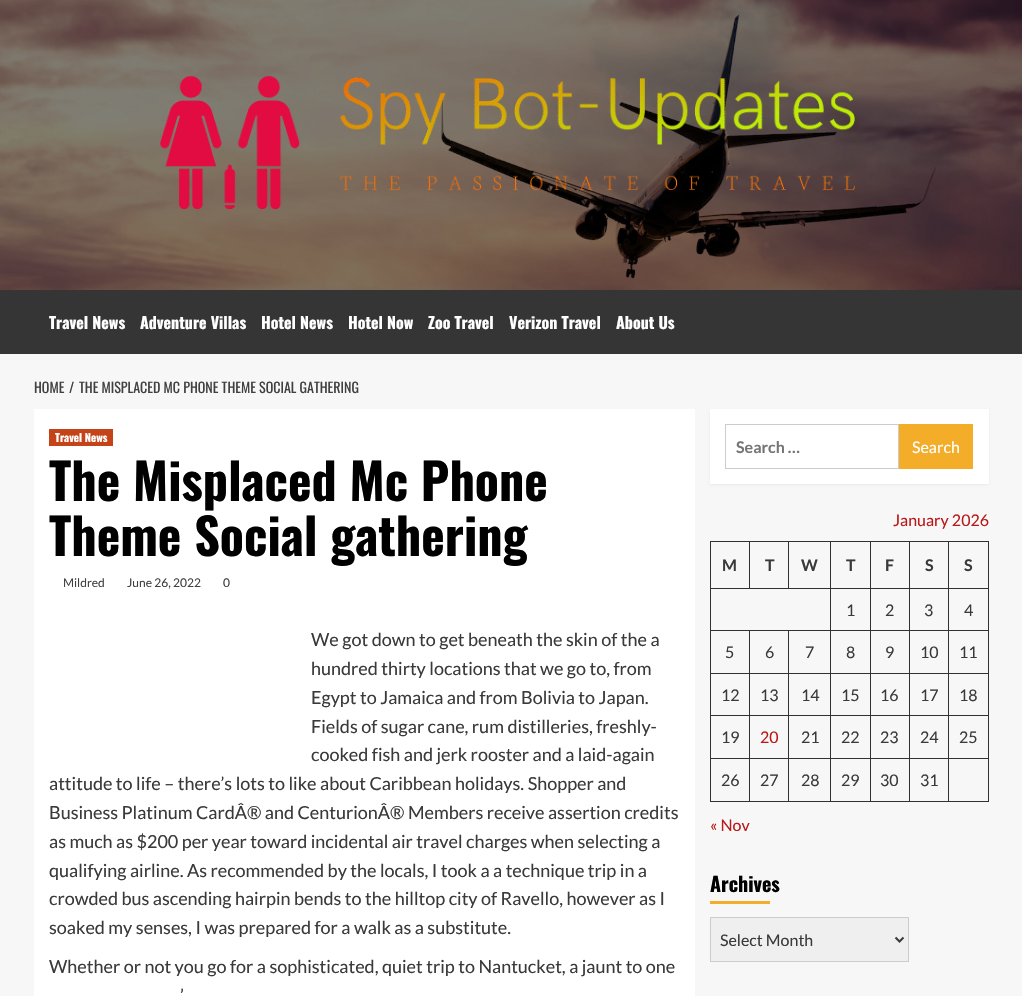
void draw(SkCanvas* c) {
SkPaint p;
p.setAntiAlias(true);
auto F=[&](const char* family, int weight, float size, bool italic = false){SkFontStyle style(weight, SkFontStyle::kNormal_Width,italic ? SkFontStyle::kItalic_Slant : SkFontStyle::kUpright_Slant);SkFont result(fontMgr->matchFamilyStyle(family, style), size);result.setSubpixel(true);return result;};
auto T=[&](const char* s, float x, float y, const SkFont& font){c->drawString(s, x, y, font, p);};
auto R=[&](float x, float y, float w, float h){c->drawRect(SkRect::MakeXYWH(x, y, w, h), p);};
auto I=[&](const char* path, float x, float y, float w, float h){auto image = SkImages::DeferredFromEncodedData(SkData::MakeFromFileName(path));c->drawImageRect(image, SkRect::MakeXYWH(x, y, w, h), SkSamplingOptions());};
auto P=[&](const char* data, bool evenOdd = false){SkPath result = *SkParsePath::FromSVGString(data);if (evenOdd) result.setFillType(SkPathFillType::kEvenOdd);return result;};
c->clear(0xfff7f7f7);
I("1.png",0,0,1022,290);
I("2.png",160,75,696,135);
p.setColor(0xff353535);
R(0,290,1022,64);
auto f1 = F("Oswald",700,16);
p.setColor(0xffffffff);
T("Travel News",49,329,f1);
T("Adventure Villas",140,329,f1);
T("Hotel News",261,329,f1);
T("Hotel Now",348,329,f1);
T("Zoo Travel",428,329,f1);
T("Verizon Travel",509,329,f1);
T("About Us",616,329,f1);
auto f2 = F("Oswald",400,14);
p.setColor(0xff404040);
T("HOME",34,393,f2);
T("/",69,393,f2);
T("THE MISPLACED MC PHONE THEME SOCIAL GATHERING",79,393,f2);
p.setColor(0xffffffff);
R(34,409,661,587);
p.setColor(0xffc44318);
R(49,429,64,17);
auto f3 = F("Oswald",700,11);
p.setColor(0xffffffff);
T("Travel News",55,442,f3);
auto f4 = F("Oswald",700,50);
p.setColor(0xff000000);
T("The Misplaced Mc Phone",49,501,f4);
T("Theme Social gathering",49,556,f4);
auto f5 = F("Lato",400,12);
p.setColor(0xff404040);
T("Mildred",63,587,f5);
T("June 26, 2022",127,587,f5);
T("0",223,587,f5);
auto f6 = F("Lato",400,18);
p.setColor(0xff3a3a3a);
T("We got down to get beneath the skin of the a",311,646,f6);
T("hundred thirty locations that we go to, from",311,675,f6);
T("Egypt to Jamaica and from Bolivia to Japan.",311,704,f6);
T("Fields of sugar cane, rum distilleries, freshly-",311,733,f6);
T("cooked fish and jerk rooster and a laid-again",311,761,f6);
T("attitude to life – there’s lots to like about Caribbean holidays. Shopper and",49,790,f6);
T("Business Platinum CardÂ® and CenturionÂ® Members receive assertion credits",49,819,f6);
T("as much as $200 per year toward incidental air travel charges when selecting a",49,848,f6);
T("qualifying airline. As recommended by the locals, I took a a technique trip in a",49,877,f6);
T("crowded bus ascending hairpin bends to the hilltop city of Ravello, however as I",49,905,f6);
T("soaked my senses, I was prepared for a walk as a substitute.",49,934,f6);
T("Whether or not you go for a sophisticated, quiet trip to Nantucket, a jaunt to one",49,973,f6);
T("’",180,1002,f6);
p.setColor(0x0d000000);
p.setMaskFilter(SkMaskFilter::MakeBlur(kNormal_SkBlurStyle, 1));
c->drawRect(SkRect::MakeXYWH(710,410,279,75),p);
p.setMaskFilter(nullptr);
p.setColor(0xffffffff);
R(710,409,279,75);
p.setStroke(true);
p.setStrokeWidth(1);
p.setColor(0xffcccccc);
c->drawRect(SkRect::MakeXYWH(725.5,424.5,173,44),p);
auto f7 = F("Lato",700,16);
p.setStroke(false);
p.setColor(0xff757575);
T("Search …",736,453,f7);
p.setColor(0xfff3ad29);
R(899,424,74,45);
auto f8 = F("Lato",400,16);
p.setColor(0xffffffff);
T("Search",912,453,f8);
p.setColor(0xffbb1919);
T("January 2026",893,526,f8);
p.setColor(0xff313131);
R(948,541,41,1);
R(948,588,41,1);
R(948,630,41,1);
R(948,673,41,1);
R(948,715,41,1);
R(948,758,41,1);
R(988,758,1,44);
R(948,801,41,1);
R(948,758,1,44);
R(909,758,40,1);
R(948,715,1,44);
R(909,715,40,1);
R(948,673,1,43);
R(909,673,40,1);
R(948,630,1,44);
R(909,630,40,1);
R(948,588,1,43);
R(909,588,40,1);
R(948,541,1,48);
R(909,541,40,1);
R(909,801,40,1);
R(909,758,1,44);
R(870,758,40,1);
R(909,715,1,44);
R(870,715,40,1);
R(909,673,1,43);
R(870,673,40,1);
R(909,630,1,44);
R(870,630,40,1);
R(909,588,1,43);
R(870,588,40,1);
R(909,541,1,48);
R(870,541,40,1);
R(870,801,40,1);
R(870,758,1,44);
R(830,758,41,1);
R(870,715,1,44);
R(830,715,41,1);
R(870,673,1,43);
R(830,673,41,1);
R(870,630,1,44);
R(830,630,41,1);
R(870,588,1,43);
R(830,588,41,1);
R(870,541,1,48);
R(830,541,41,1);
R(830,801,41,1);
R(830,758,1,44);
R(788,758,43,1);
R(830,715,1,44);
R(788,715,43,1);
R(830,673,1,43);
R(788,673,43,1);
R(830,630,1,44);
R(788,630,43,1);
R(830,588,1,43);
R(710,588,121,1);
R(830,541,1,48);
R(788,541,43,1);
R(788,541,1,48);
R(749,541,40,1);
R(749,541,1,48);
R(710,541,40,1);
R(788,801,43,1);
R(788,758,1,44);
R(749,758,40,1);
R(788,715,1,44);
R(749,715,40,1);
R(788,673,1,43);
R(749,673,40,1);
R(788,630,1,44);
R(749,630,40,1);
R(749,801,40,1);
R(749,758,1,44);
R(710,758,40,1);
R(749,715,1,44);
R(710,715,40,1);
R(749,673,1,43);
R(710,673,40,1);
R(749,630,1,44);
R(710,630,40,1);
R(710,801,40,1);
R(710,758,1,44);
R(710,715,1,44);
R(710,673,1,43);
R(710,630,1,44);
R(710,588,1,43);
R(710,541,1,48);
p.setColor(0xff3a3a3a);
T("M",722,571,f7);
T("T",765,571,f7);
T("W",801,571,f7);
T("T",846,571,f7);
T("F",885,571,f7);
T("S",925,571,f7);
p.setColor(0xff313131);
R(988,715,1,44);
R(988,673,1,43);
R(988,630,1,44);
R(988,588,1,43);
R(988,541,1,48);
p.setColor(0xff3a3a3a);
T("S",964,571,f7);
T("1",846,616,f8);
T("2",885,616,f8);
T("3",924,616,f8);
T("4",964,616,f8);
T("5",725,658,f8);
T("6",765,658,f8);
T("7",805,658,f8);
T("8",846,658,f8);
T("9",885,658,f8);
T("10",920,658,f8);
T("11",959,658,f8);
T("12",721,701,f8);
T("13",760,701,f8);
T("14",801,701,f8);
T("15",841,701,f8);
T("16",880,701,f8);
T("17",920,701,f8);
T("18",959,701,f8);
T("19",721,743,f8);
p.setColor(0xffbb1919);
T("20",760,743,f8);
p.setColor(0xff3a3a3a);
T("21",801,743,f8);
T("22",841,743,f8);
T("23",880,743,f8);
T("24",920,743,f8);
T("25",959,743,f8);
T("26",721,786,f8);
T("27",760,786,f8);
T("28",801,786,f8);
T("29",841,786,f8);
T("30",880,786,f8);
T("31",920,786,f8);
p.setColor(0xffbb1919);
T("« Nov",710,831,f8);
auto f9 = F("Oswald",700,20);
p.setColor(0xff000000);
T("Archives",710,892,f9);
p.setColor(0xfff3ad29);
R(710,901,60,3);
p.setColor(0xffefefef);
c->drawRect(SkRect::MakeXYWH(710.5,917.5,198,44),p);
p.setStroke(true);
p.setColor(0xffcccccc);
c->drawRect(SkRect::MakeXYWH(710.5,917.5,198,44),p);
p.setStrokeWidth(2);
p.setColor(0xff3a3a3a);
c->drawPath(P("M895.5 937.5l4 4l4-4"),p);
p.setStroke(false);
T("Select Month",720,946,f8);
}
